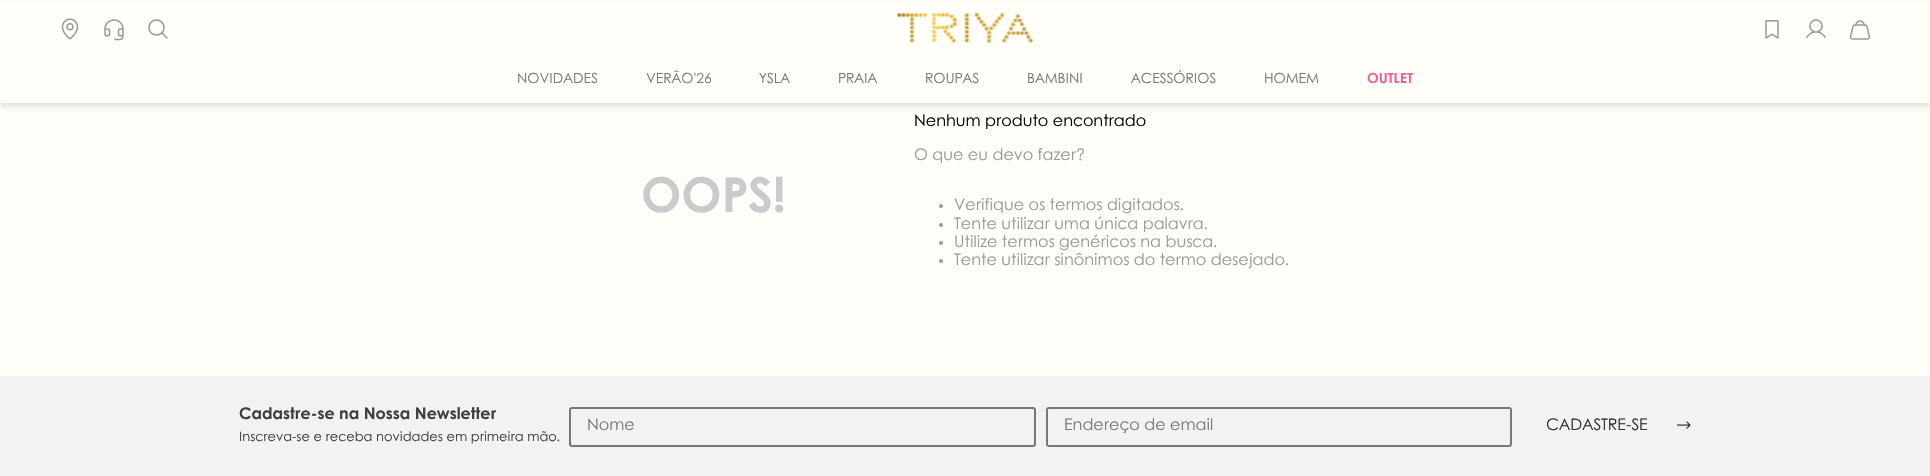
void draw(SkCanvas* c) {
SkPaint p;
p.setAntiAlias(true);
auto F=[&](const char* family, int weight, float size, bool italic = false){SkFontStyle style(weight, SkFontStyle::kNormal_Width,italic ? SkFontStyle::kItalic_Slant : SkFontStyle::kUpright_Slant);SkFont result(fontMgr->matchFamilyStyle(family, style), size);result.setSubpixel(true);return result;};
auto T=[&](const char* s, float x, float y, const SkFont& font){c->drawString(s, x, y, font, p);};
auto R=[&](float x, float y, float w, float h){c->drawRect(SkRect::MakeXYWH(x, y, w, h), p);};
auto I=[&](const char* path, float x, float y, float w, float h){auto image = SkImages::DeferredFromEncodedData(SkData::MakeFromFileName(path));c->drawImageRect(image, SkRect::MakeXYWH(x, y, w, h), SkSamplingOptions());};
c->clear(0xfffffef9);
p.setColor(0x1a000000);
p.setMaskFilter(SkMaskFilter::MakeBlur(kNormal_SkBlurStyle, 2.5));
c->drawRect(SkRect::MakeXYWH(0,4,1930,103),p);
p.setMaskFilter(nullptr);
p.setColor(0xfffffef9);
R(0,1,1930,102);
I("1.png",61,18,18,22);
I("2.png",104,19,20,22);
I("3.png",148,19,20,20);
I("4.png",897,12,136,31);
I("5.png",1765,20,14,19);
I("6.png",1806,19,20,19);
I("7.png",1849,20,22,20);
auto f1 = F("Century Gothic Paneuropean",400,14);
p.setColor(0xff7c7777);
T("NOVIDADES",517,83,f1);
T("VERÃO'26",646,83,f1);
T("YSLA",759,83,f1);
T("PRAIA",838,83,f1);
T("ROUPAS",925,83,f1);
T("BAMBINI",1027,83,f1);
T("ACESSÓRIOS",1131,83,f1);
T("HOMEM",1264,83,f1);
auto f2 = F("Century Gothic Paneuropean",700,14);
p.setColor(0xffef6096);
T("OUTLET",1367,83,f2);
auto f3 = F("Century Gothic Paneuropean",700,48);
p.setColor(0xffcacbcc);
T("OOPS!",641,212,f3);
auto f4 = F("Century Gothic Paneuropean",400,16);
p.setColor(0xff000000);
T("Nenhum produto encontrado",914,126,f4);
p.setColor(0xff979899);
T("O que eu devo fazer?",914,160,f4);
c->drawCircle(941,206,2,p);
T("Verifique os termos digitados.",954,210,f4);
c->drawCircle(941,225,2,p);
T("Tente utilizar uma única palavra.",954,229,f4);
c->drawCircle(941,243,2,p);
T("Utilize termos genéricos na busca.",954,247,f4);
c->drawCircle(941,261,2,p);
T("Tente utilizar sinônimos do termo desejado.",954,265,f4);
p.setColor(0xfff2f2f2);
R(0,376,1930,100);
auto f5 = F("Century Gothic Paneuropean",700,16);
p.setColor(0xff3f3f40);
T("Cadastre-se na Nossa Newsletter",239,419,f5);
auto f6 = F("Century Gothic Paneuropean",400,13);
T("Inscreva-se e receba novidades em primeira mão.",239,441,f6);
p.setStroke(true);
p.setStrokeWidth(2);
p.setColor(0xff7c7777);
c->drawRoundRect(SkRect::MakeXYWH(570,408,465,38),2,2,p);
p.setStroke(false);
T("Nome",587,430,f4);
p.setStroke(true);
c->drawRoundRect(SkRect::MakeXYWH(1047,408,464,38),2,2,p);
p.setStroke(false);
T("Endereço de email",1064,430,f4);
p.setColor(0xff303030);
T("CADASTRE-SE",1546,430,f4);
I("8.png",1677,421,14,9);
}
